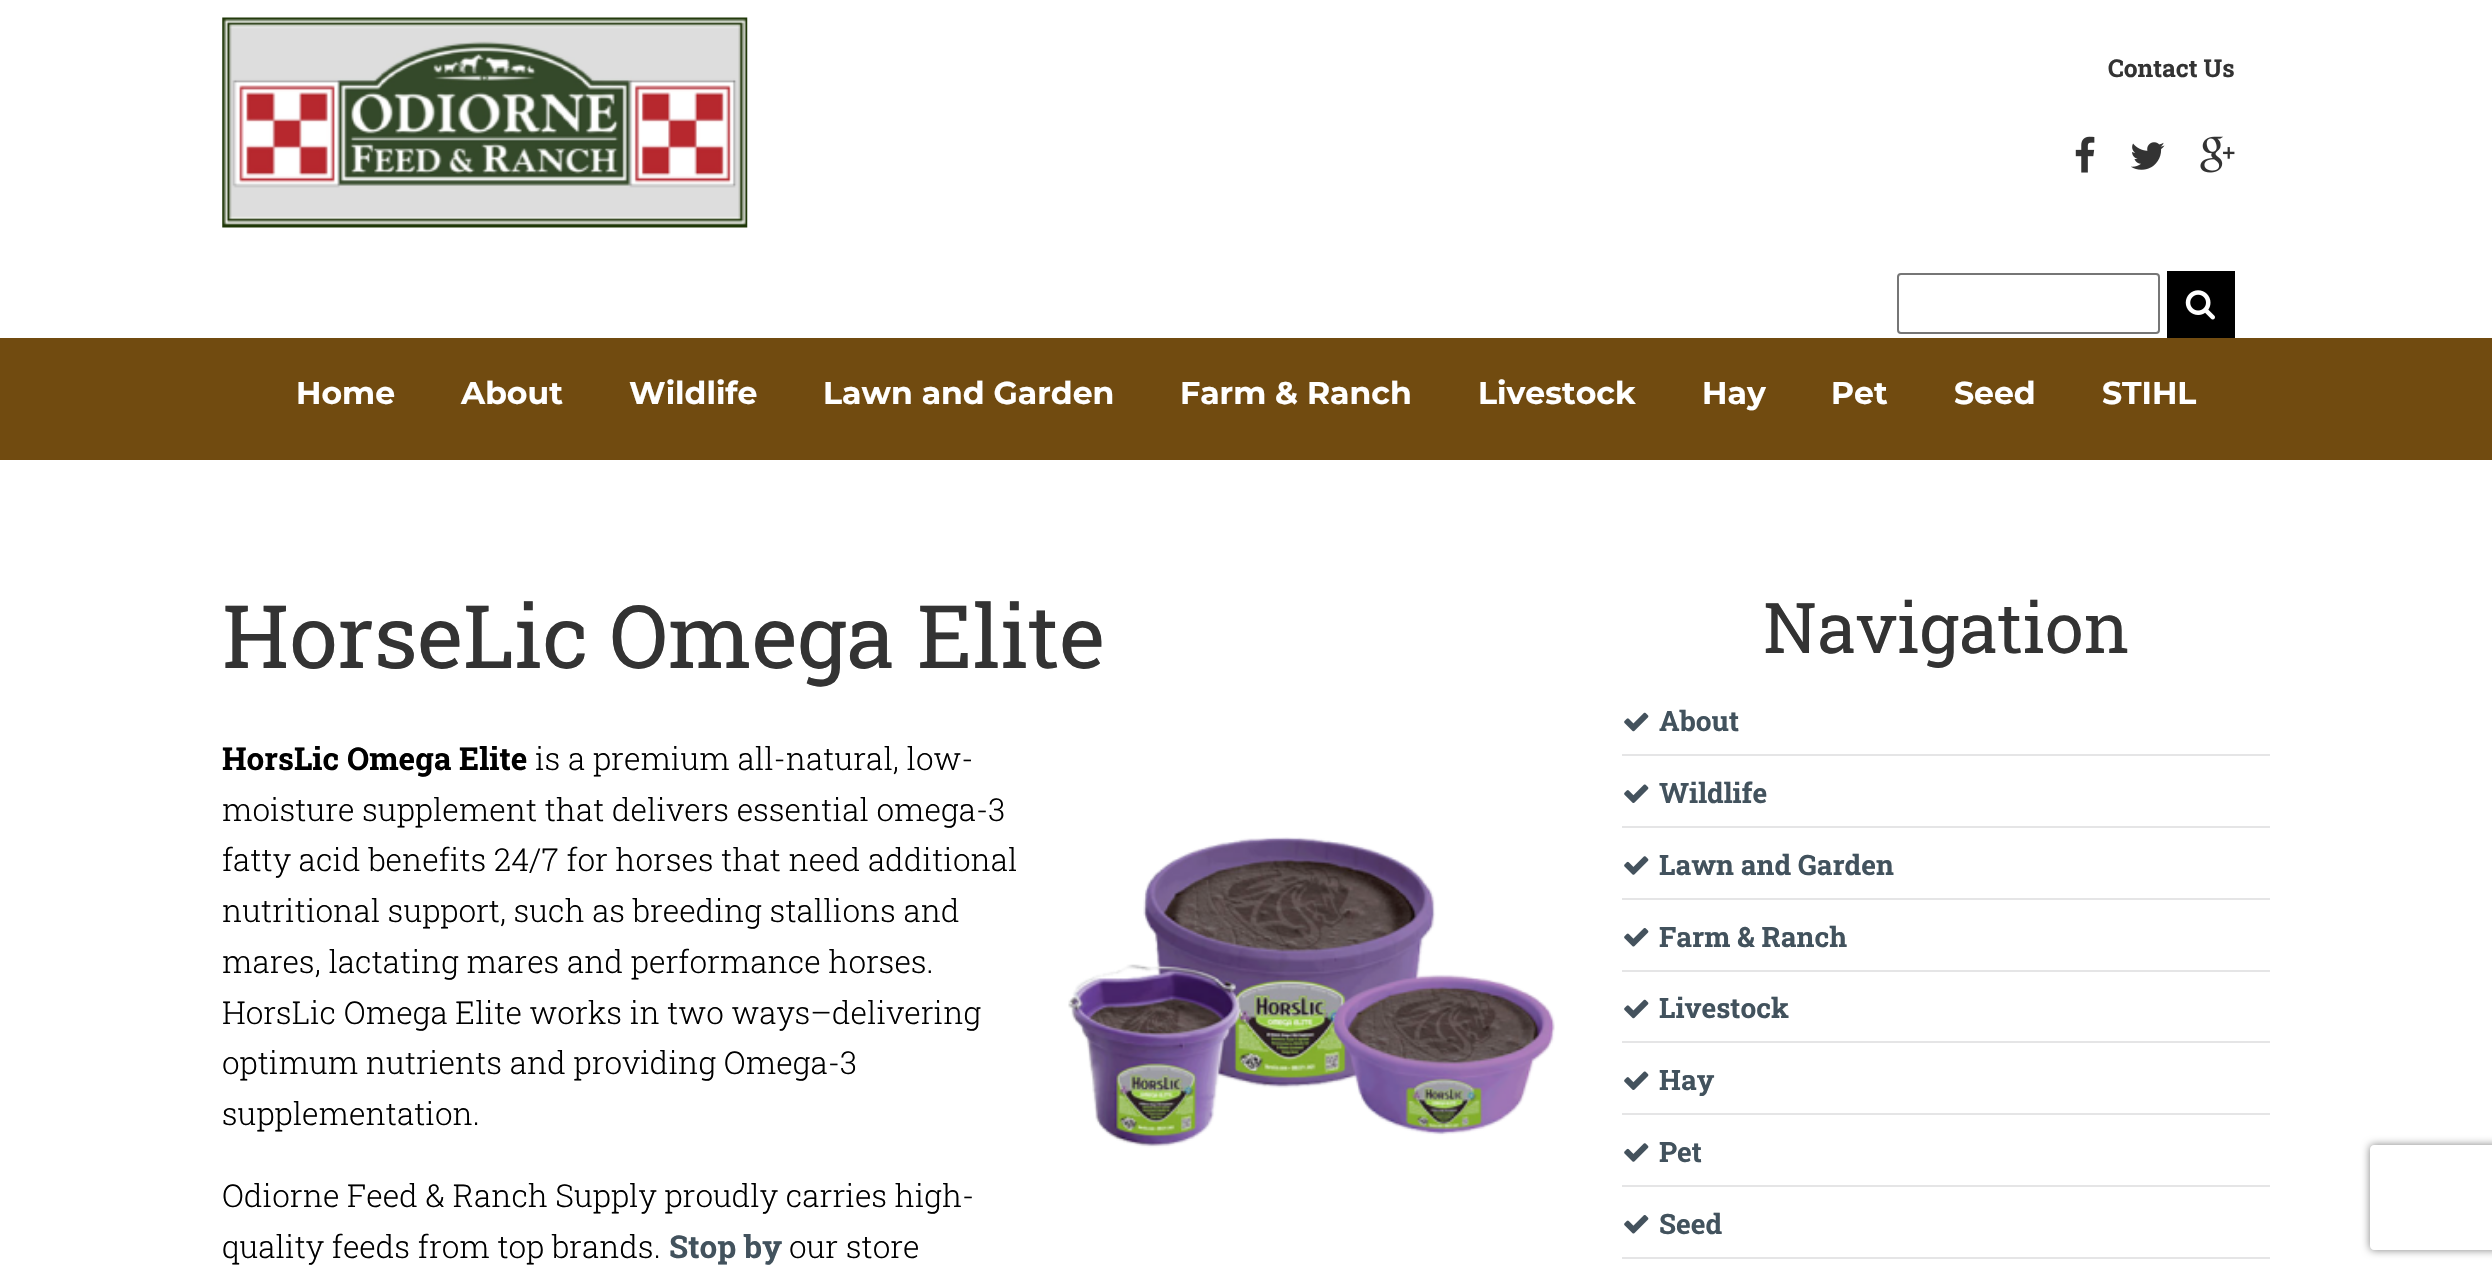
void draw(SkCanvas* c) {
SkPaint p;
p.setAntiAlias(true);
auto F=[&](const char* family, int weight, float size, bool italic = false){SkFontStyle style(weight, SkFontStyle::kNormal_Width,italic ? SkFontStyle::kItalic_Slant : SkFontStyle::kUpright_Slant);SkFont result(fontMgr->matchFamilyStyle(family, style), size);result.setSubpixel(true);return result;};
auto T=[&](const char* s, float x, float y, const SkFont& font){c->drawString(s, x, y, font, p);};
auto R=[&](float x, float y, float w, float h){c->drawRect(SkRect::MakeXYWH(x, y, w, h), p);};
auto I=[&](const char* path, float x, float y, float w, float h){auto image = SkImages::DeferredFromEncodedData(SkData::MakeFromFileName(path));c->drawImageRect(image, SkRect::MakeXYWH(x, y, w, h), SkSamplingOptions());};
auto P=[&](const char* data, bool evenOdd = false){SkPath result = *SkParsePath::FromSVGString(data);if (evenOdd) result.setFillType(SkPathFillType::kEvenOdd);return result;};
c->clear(0xffffffff);
I("1.png",222,17,526,211);
auto f1 = F("Roboto Slab",700,24.5);
p.setColor(0xff333333);
T("Contact Us",2108,77,f1);
I("2.png",2075,136,20,37);
I("3.png",2131,142,34,28);
I("4.png",2200,136,35,37);
p.setStroke(true);
p.setStrokeWidth(2);
p.setColor(0xff767676);
c->drawRoundRect(SkRect::MakeXYWH(1898,274,261,59),3,3,p);
p.setStroke(false);
p.setColor(0xff000000);
R(2167,271,68,67);
I("5.png",2185,290,30,30);
p.setColor(0xff714b10);
R(0,338,2492,122);
auto f2 = F("Montserrat",700,31.5);
p.setColor(0xffffffff);
T("Home",296,404,f2);
T("About",461,404,f2);
T("Wildlife",629,404,f2);
T("Lawn and Garden",823,404,f2);
T("Farm & Ranch",1180,404,f2);
T("Livestock",1478,404,f2);
T("Hay",1702,404,f2);
T("Pet",1831,404,f2);
T("Seed",1954,404,f2);
T("STIHL",2102,404,f2);
auto f3 = F("Roboto Slab",400,87.5);
p.setColor(0xff333333);
T("HorseLic Omega Elite",222,668,f3);
auto f4 = F("Roboto Slab",700,31.5);
p.setColor(0xff000000);
T("HorsLic Omega Elite",222,770,f4);
I("6.png",1068,837,487,311);
auto f5 = F("Roboto Slab",300,31.5);
T("is a premium all-natural, low-",535,770,f5);
T("moisture supplement that delivers essential omega-3",222,821,f5);
T("fatty acid benefits 24/7 for horses that need additional",222,871,f5);
T("nutritional support, such as breeding stallions and",222,922,f5);
T("mares, lactating mares and performance horses.",222,973,f5);
T("HorsLic Omega Elite works in two ways–delivering",222,1024,f5);
T("optimum nutrients and providing Omega-3",222,1074,f5);
T("supplementation.",222,1125,f5);
T("Odiorne Feed & Ranch Supply proudly carries high-",222,1207,f5);
T("quality feeds from top brands.",222,1258,f5);
p.setColor(0xff42525d);
T("Stop by",669,1258,f4);
p.setColor(0xff000000);
T("our store",789,1258,f5);
auto f6 = F("Roboto Slab",400,70);
p.setColor(0xff333333);
T("Navigation",1763,653,f6);
p.setColor(0xffe5e5e6);
R(1622,754,648,2);
I("7.png",1624,712,25,20);
auto f7 = F("Roboto Slab",700,28);
p.setColor(0xff42525d);
T("About",1659,731,f7);
p.setColor(0xffe5e5e6);
R(1622,826,648,2);
I("8.png",1624,784,25,19);
p.setColor(0xff42525d);
T("Wildlife",1659,803,f7);
p.setColor(0xffe5e5e6);
R(1622,898,648,2);
I("9.png",1624,856,25,19);
p.setColor(0xff42525d);
T("Lawn and Garden",1659,875,f7);
p.setColor(0xffe5e5e6);
R(1622,970,648,2);
I("10.png",1624,928,25,19);
p.setColor(0xff42525d);
T("Farm & Ranch",1659,947,f7);
p.setColor(0xffe5e5e6);
R(1622,1041,648,2);
I("7.png",1624,999,25,20);
p.setColor(0xff42525d);
T("Livestock",1659,1018,f7);
p.setColor(0xffe5e5e6);
R(1622,1113,648,2);
I("8.png",1624,1071,25,19);
p.setColor(0xff42525d);
T("Hay",1659,1090,f7);
p.setColor(0xffe5e5e6);
R(1622,1185,648,2);
I("9.png",1624,1143,25,19);
p.setColor(0xff42525d);
T("Pet",1659,1162,f7);
p.setColor(0xffe5e5e6);
R(1622,1257,648,2);
I("10.png",1624,1215,25,19);
p.setColor(0xff42525d);
T("Seed",1659,1234,f7);
c->save();
c->clipPath(P("M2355 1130h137v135h-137zm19 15h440c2 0 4 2 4 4v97c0 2-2 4-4 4h-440c-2 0-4-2-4-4v-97c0-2 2-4 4-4z",true),true);
p.setColor(0xff808080);
p.setMaskFilter(SkMaskFilter::MakeBlur(kNormal_SkBlurStyle, 4.5));
c->drawRoundRect(SkRect::MakeXYWH(2370,1145,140,105),4,4,p);
p.setMaskFilter(nullptr);
c->restore();
}
